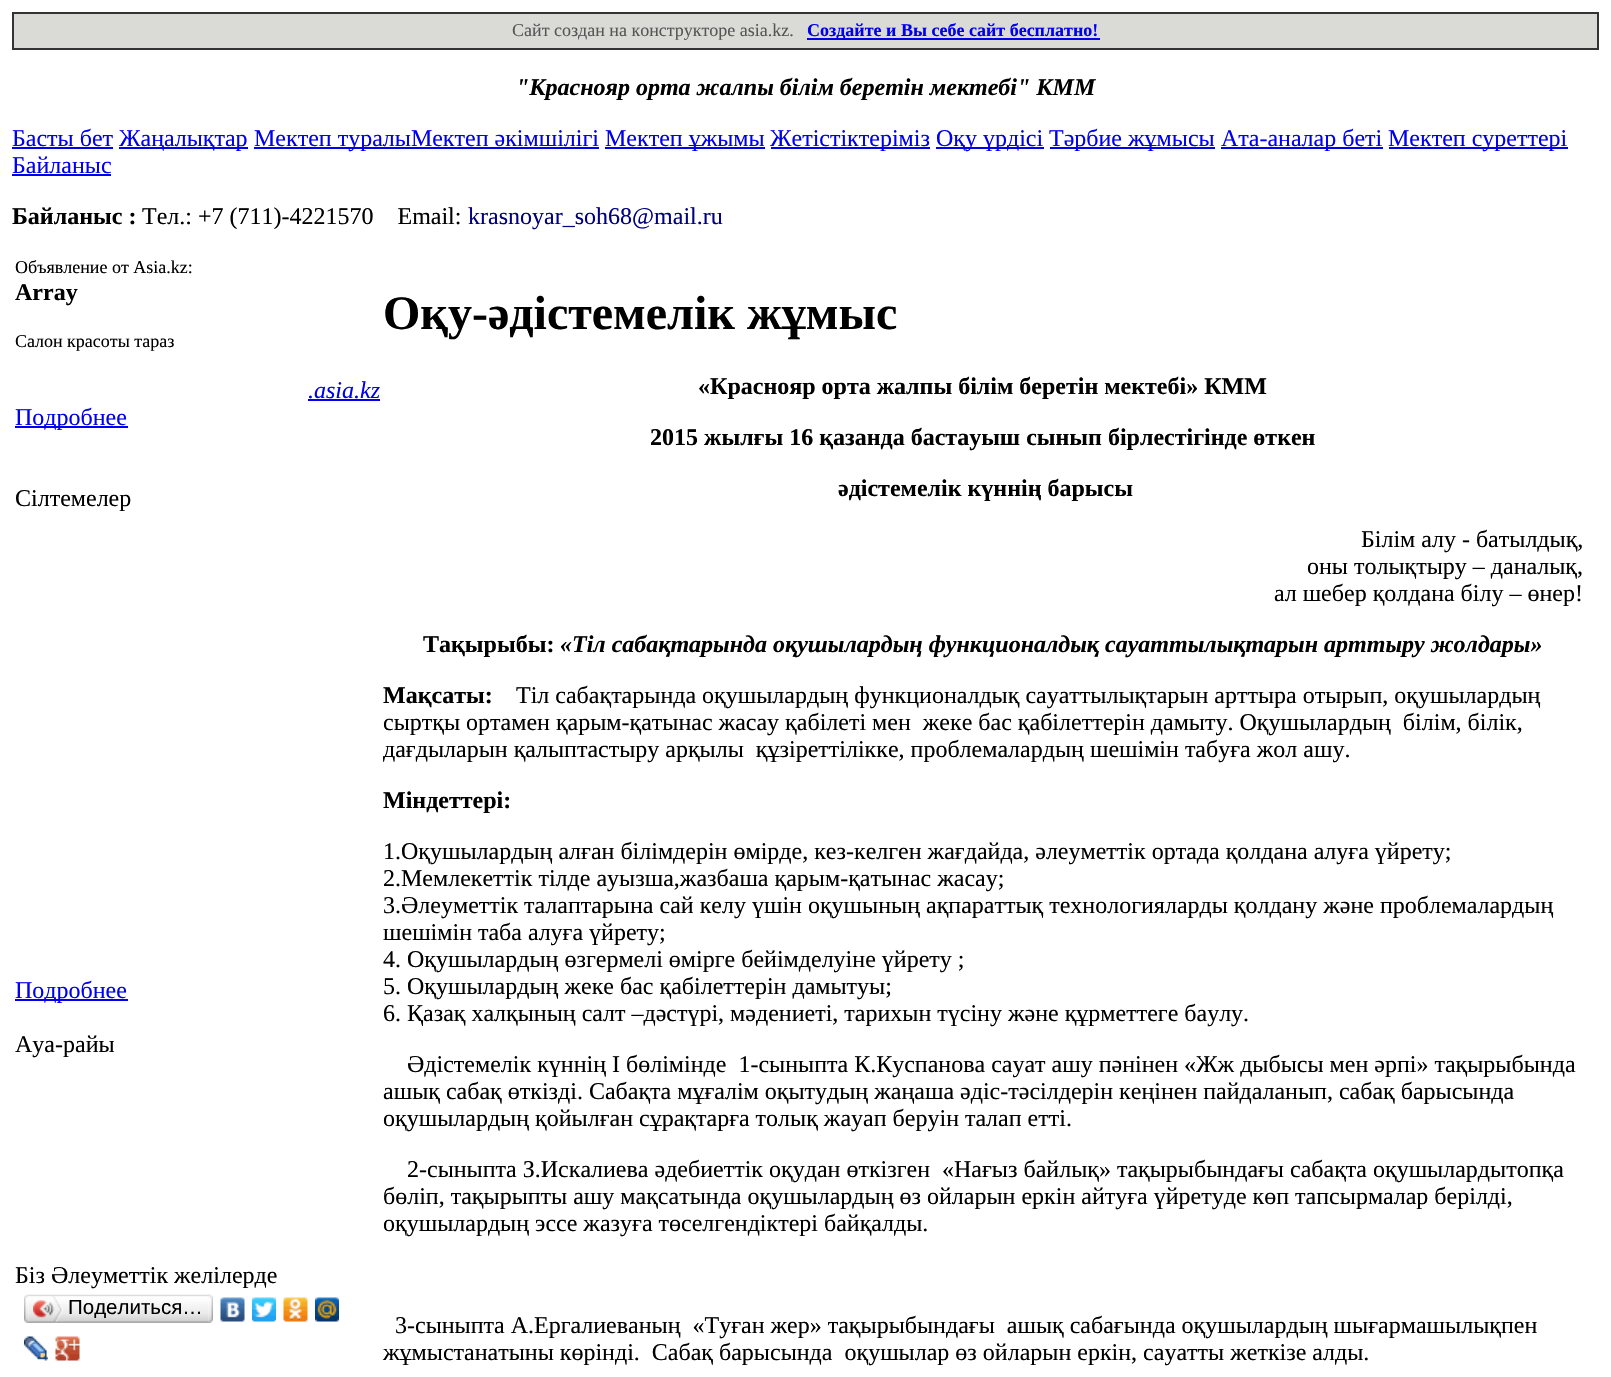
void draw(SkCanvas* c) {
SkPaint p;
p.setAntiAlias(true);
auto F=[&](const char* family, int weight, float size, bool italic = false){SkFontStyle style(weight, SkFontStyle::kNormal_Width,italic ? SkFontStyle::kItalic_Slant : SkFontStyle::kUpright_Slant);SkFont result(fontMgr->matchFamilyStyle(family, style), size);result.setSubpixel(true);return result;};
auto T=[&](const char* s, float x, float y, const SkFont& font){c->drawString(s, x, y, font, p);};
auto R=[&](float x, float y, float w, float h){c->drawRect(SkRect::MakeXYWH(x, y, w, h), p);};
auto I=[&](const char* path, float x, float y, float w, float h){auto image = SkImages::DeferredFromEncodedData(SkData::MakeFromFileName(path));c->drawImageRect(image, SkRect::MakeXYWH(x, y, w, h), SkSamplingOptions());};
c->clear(0xffffffff);
p.setColor(0xffdadad7);
c->drawRect(SkRect::MakeXYWH(13,13,1585,36),p);
p.setStroke(true);
p.setStrokeWidth(2);
p.setColor(0xff333333);
c->drawRect(SkRect::MakeXYWH(13,13,1585,36),p);
auto f1 = F("Liberation Serif",400,18);
p.setStroke(false);
p.setColor(0xff555555);
T("Сайт создан на конструкторе asia.kz.",512,36,f1);
p.setColor(0xff0000ee);
R(807,38,293,2);
auto f2 = F("Liberation Serif",700,18);
T("Создайте и Вы себе сайт бесплатно!",807,36,f2);
auto f3 = F("Liberation Serif",700,24,true);
p.setColor(0xff000000);
T("\"Краснояр орта жалпы білім беретін мектебі\" КММ",516,95,f3);
auto f4 = F("Liberation Serif",400,24);
p.setColor(0xff0000ee);
T("Басты бет",12,146,f4);
R(12,147,101,2);
R(119,147,129,2);
T("Жаңалықтар",119,146,f4);
R(254,147,345,2);
T("Мектеп туралыМектеп әкімшілігі",254,146,f4);
R(605,147,160,2);
T("Мектеп ұжымы",605,146,f4);
R(771,147,159,2);
T("Жетістіктеріміз",770,146,f4);
R(936,147,108,2);
T("Оқу үрдісі",936,146,f4);
R(1050,147,165,2);
T("Тәрбие жұмысы",1049,146,f4);
R(1221,147,162,2);
T("Ата-аналар беті",1221,146,f4);
R(1389,147,179,2);
T("Мектеп суреттері",1388,146,f4);
T("Байланыс",12,173,f4);
R(12,174,99,2);
auto f5 = F("Liberation Serif",700,24);
p.setColor(0xff000000);
T("Байланыс :",12,224,f5);
T("Тел.: +7 (711)-4221570    Email:",142,224,f4);
p.setColor(0xff000080);
T("krasnoyar_soh68@mail.ru",468,224,f4);
p.setColor(0xff000000);
T("Объявление от Asia.kz:",15,273,f1);
T("Array",15,300,f5);
T("Салон красоты тараз",15,347,f1);
auto f6 = F("Liberation Serif",400,24,true);
p.setColor(0xff0000ee);
T(".asia.kz",308,398,f6);
R(308,399,72,2);
R(15,426,113,2);
T("Подробнее",15,425,f4);
p.setColor(0xff000000);
T("Cілтемелер",15,506,f4);
p.setColor(0xff0000ee);
R(15,999,113,2);
T("Подробнее",15,998,f4);
p.setColor(0xff000000);
T("Ауа-райы",15,1052,f4);
T("Біз Әлеуметтік желілерде",15,1283,f4);
I("1.png",28,1294,181,29);
I("2.png",24,1294,5,29);
I("3.png",33,1296,30,26);
auto f7 = F("Liberation Sans",400,20.5);
T("Поделиться…",68,1314,f7);
I("4.png",208,1294,5,29);
I("5.png",220,1297,25,25);
I("6.png",252,1297,24,25);
I("7.png",283,1297,25,25);
I("8.png",315,1297,24,25);
I("9.png",24,1336,24,25);
I("10.png",55,1336,25,25);
auto f8 = F("Liberation Serif",700,48);
T("Оқу-әдістемелік жұмыс",383,329,f8);
T("«Краснояр орта жалпы білім беретін мектебі» КММ",698,394,f5);
T("2015 жылғы 16 қазанда бастауыш сынып бірлестігінде өткен",650,445,f5);
T("әдістемелік күннің барысы",838,496,f5);
T("Білім алу - батылдық,",1361,547,f4);
T("оны толықтыру – даналық,",1307,574,f4);
T("ал шебер қолдана білу – өнер!",1274,601,f4);
T("Тақырыбы:",423,652,f5);
T("«Тіл сабақтарында оқушылардың функционалдық сауаттылықтарын арттыру жолдары»",560,652,f3);
T("Мақсаты:",383,703,f5);
T("Тіл сабақтарында оқушылардың функционалдық сауаттылықтарын арттыра отырып, оқушылардың",516,703,f4);
T("сыртқы ортамен қарым-қатынас жасау қабілеті мен  жеке бас қабілеттерін дамыту. Оқушылардың  білім, білік,",383,730,f4);
T("дағдыларын қалыптастыру арқылы  құзіреттілікке, проблемалардың шешімін табуға жол ашу.",383,757,f4);
T("Міндеттері:",383,808,f5);
T("1.Оқушылардың алған білімдерін өмірде, кез-келген жағдайда, әлеуметтік ортада қолдана алуға үйрету;",383,859,f4);
T("2.Мемлекеттік тілде ауызша,жазбаша қарым-қатынас жасау;",383,886,f4);
T("3.Әлеуметтік талаптарына сай келу үшін оқушының ақпараттық технологияларды қолдану және проблемалардың",383,913,f4);
T("шешімін таба алуға үйрету;",383,940,f4);
T("4. Оқушылардың өзгермелі өмірге бейімделуіне үйрету ;",383,967,f4);
T("5. Оқушылардың жеке бас қабілеттерін дамытуы;",383,994,f4);
T("6. Қазақ халқының салт –дәстүрі, мәдениеті, тарихын түсіну және құрметтеге баулу.",383,1021,f4);
T("Әдістемелік күннің І бөлімінде  1-сыныпта К.Куспанова сауат ашу пәнінен «Жж дыбысы мен әрпі» тақырыбында",407,1072,f4);
T("ашық сабақ өткізді. Сабақта мұғалім оқытудың жаңаша әдіс-тәсілдерін кеңінен пайдаланып, сабақ барысында",383,1099,f4);
T("оқушылардың қойылған сұрақтарға толық жауап беруін талап етті.",383,1126,f4);
T("2-сыныпта З.Искалиева әдебиеттік оқудан өткізген  «Нағыз байлық» тақырыбындағы сабақта оқушылардытопқа",407,1177,f4);
T("бөліп, тақырыпты ашу мақсатында оқушылардың өз ойларын еркін айтуға үйретуде көп тапсырмалар берілді,",383,1204,f4);
T("оқушылардың эссе жазуға төселгендіктері байқалды.",383,1231,f4);
T("3-сыныпта А.Ергалиеваның  «Туған жер» тақырыбындағы  ашық сабағында оқушылардың шығармашылықпен",395,1333,f4);
T("жұмыстанатыны көрінді.  Сабақ барысында  оқушылар өз ойларын еркін, сауатты жеткізе алды.",383,1360,f4);
}
